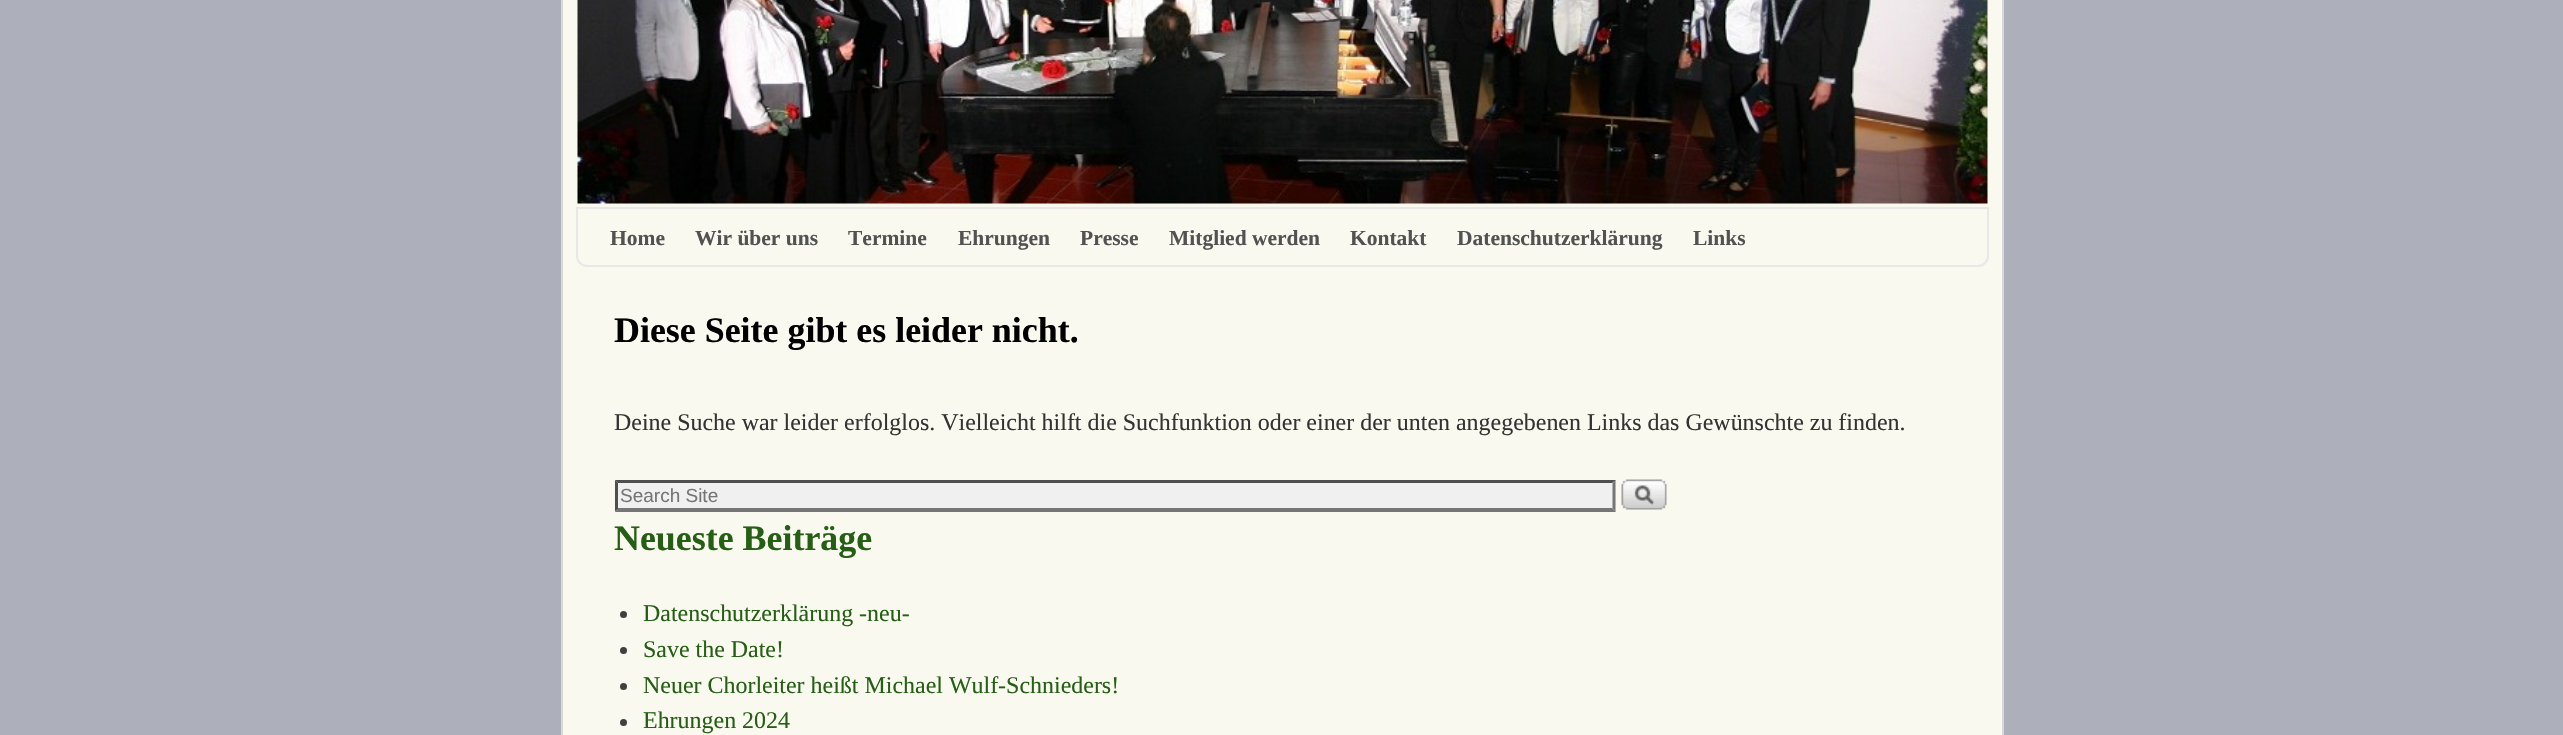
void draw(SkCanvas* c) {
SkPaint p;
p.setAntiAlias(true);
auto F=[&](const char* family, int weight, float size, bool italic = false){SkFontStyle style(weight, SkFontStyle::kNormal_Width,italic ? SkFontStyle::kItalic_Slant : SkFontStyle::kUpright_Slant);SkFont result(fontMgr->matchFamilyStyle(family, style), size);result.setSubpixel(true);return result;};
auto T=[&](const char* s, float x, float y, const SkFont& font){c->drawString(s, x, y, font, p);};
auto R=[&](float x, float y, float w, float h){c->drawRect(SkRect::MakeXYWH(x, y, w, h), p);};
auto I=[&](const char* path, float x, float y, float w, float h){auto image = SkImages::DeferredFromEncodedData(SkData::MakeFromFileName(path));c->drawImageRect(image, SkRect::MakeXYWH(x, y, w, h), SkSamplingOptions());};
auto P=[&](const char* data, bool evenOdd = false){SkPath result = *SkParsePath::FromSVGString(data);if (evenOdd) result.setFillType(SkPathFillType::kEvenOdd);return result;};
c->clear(0xffadb0ba);
p.setColor(0xfff9f9f0);
c->drawRect(SkRect::MakeXYWH(562,-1,1441,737),p);
p.setStroke(true);
p.setStrokeWidth(2);
p.setColor(0xffd8d8d8);
c->drawRect(SkRect::MakeXYWH(562,-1,1441,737),p);
I("1.png",577,0,1411,204);
p.setColor(0xffe8e8e8);
c->drawPath(P("M577 208h1411v48c0 5.5-4.5 10-10 10h-1391c-5.5 0-10-4.5-10-10z"),p);
auto f1 = F("Liberation Serif",700,21.5);
p.setStroke(false);
p.setColor(0xff525252);
T("Home",610,245,f1);
T("Wir über uns",695,245,f1);
T("Termine",848,245,f1);
T("Ehrungen",958,245,f1);
T("Presse",1080,245,f1);
T("Mitglied werden",1169,245,f1);
T("Kontakt",1350,245,f1);
T("Datenschutzerklärung",1457,245,f1);
T("Links",1693,245,f1);
auto f2 = F("Liberation Serif",700,35.9);
p.setColor(0xff000000);
T("Diese Seite gibt es leider nicht.",614,342,f2);
auto f3 = F("Liberation Serif",400,23.95);
p.setColor(0xff333333);
T("Deine Suche war leider erfolglos. Vielleicht hilft die Suchfunktion oder einer der unten angegebenen Links das Gewünschte zu finden.",614,430,f3);
p.setColor(0xfff0f0f0);
R(615,480,1001,32);
p.setColor(0xff4f4f4f);
c->drawPath(P("M615 480h1001l-4 3h-994z"),p);
p.setColor(0xff767676);
c->drawPath(P("M1615.5 480v31.5l-3-3v-25.5z"),p);
c->drawPath(P("M1616 512h-1001l3-4h994z"),p);
p.setColor(0xff4f4f4f);
c->drawPath(P("M615 511.5v-31.5l3 3v25.5z"),p);
auto f4 = F("Liberation Sans",400,19);
p.setColor(0xff757575);
T("Search Site",620,502,f4);
I("2.png",1621,479,46,31);
p.setColor(0xff265e15);
T("Neueste Beiträge",614,550,f2);
p.setColor(0xff404040);
c->drawCircle(623.5,614.5,3.5,p);
p.setColor(0xff265e15);
T("Datenschutzerklärung -neu-",643,621,f3);
p.setColor(0xff404040);
c->drawCircle(623.5,650.5,3.5,p);
p.setColor(0xff265e15);
T("Save the Date!",643,657,f3);
p.setColor(0xff404040);
c->drawCircle(623.5,686.5,3.5,p);
p.setColor(0xff265e15);
T("Neuer Chorleiter heißt Michael Wulf-Schnieders!",643,693,f3);
p.setColor(0xff404040);
c->drawCircle(623.5,722.5,3.5,p);
p.setColor(0xff265e15);
T("Ehrungen 2024",643,728,f3);
}
